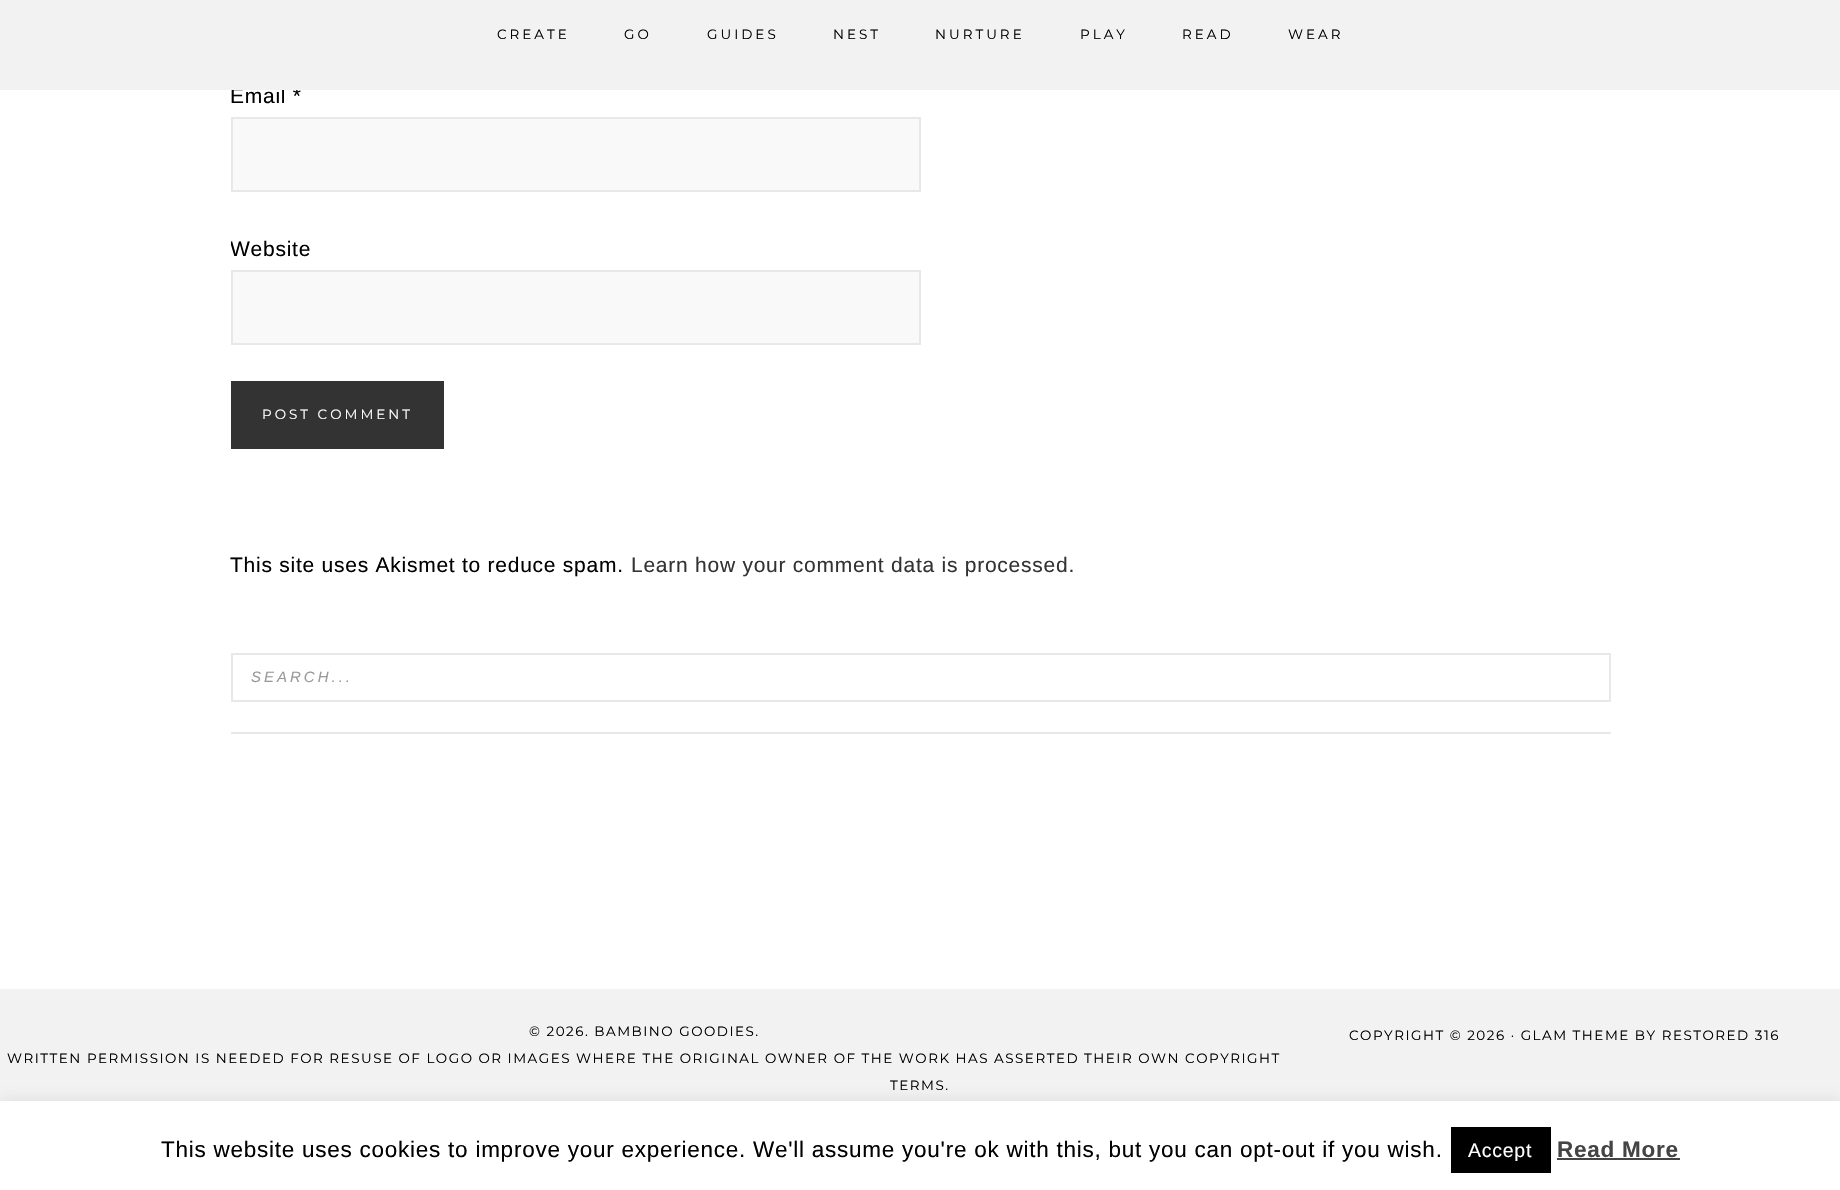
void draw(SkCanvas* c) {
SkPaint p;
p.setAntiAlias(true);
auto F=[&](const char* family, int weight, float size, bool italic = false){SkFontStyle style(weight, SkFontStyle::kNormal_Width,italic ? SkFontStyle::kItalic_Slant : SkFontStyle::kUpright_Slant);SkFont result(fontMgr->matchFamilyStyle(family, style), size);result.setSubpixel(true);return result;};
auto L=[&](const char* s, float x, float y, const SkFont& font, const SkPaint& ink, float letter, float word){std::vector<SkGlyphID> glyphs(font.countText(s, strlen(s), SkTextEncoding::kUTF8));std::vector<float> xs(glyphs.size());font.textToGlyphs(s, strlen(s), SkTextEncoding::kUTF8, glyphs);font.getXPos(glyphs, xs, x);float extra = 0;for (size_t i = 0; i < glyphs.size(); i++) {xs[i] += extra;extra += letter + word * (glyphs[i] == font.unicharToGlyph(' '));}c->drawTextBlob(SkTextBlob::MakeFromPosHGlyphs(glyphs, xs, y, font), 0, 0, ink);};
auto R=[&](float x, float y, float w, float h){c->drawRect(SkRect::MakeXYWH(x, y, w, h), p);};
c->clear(0xffffffff);
auto f1 = F("Liberation Sans",400,21);
p.setColor(0xff000000);
L("Email *",230,103,f1,p,.75,0);
p.setColor(0xfff2f2f2);
R(0,0,1840,90);
auto f2 = F("Montserrat",100,13.5);
p.setColor(0xff000000);
L("CREATE",497,39,f2,p,3,0);
L("GO",624,39,f2,p,3,0);
L("GUIDES",707,39,f2,p,3,0);
L("NEST",833,39,f2,p,3,0);
L("NURTURE",935,39,f2,p,3,0);
L("PLAY",1080,39,f2,p,3,0);
L("READ",1182,39,f2,p,3,0);
L("WEAR",1288,39,f2,p,3,0);
p.setColor(0xfff9f9f9);
c->drawRect(SkRect::MakeXYWH(232,118,688,73),p);
p.setStroke(true);
p.setStrokeWidth(2);
p.setColor(0xffe8e8e8);
c->drawRect(SkRect::MakeXYWH(232,118,688,73),p);
c->save();
c->clipRect(SkRect::MakeXYWH(231,0,1380,485));
p.setStroke(false);
p.setColor(0xff000000);
L("Website",230,256,f1,p,.75,0);
c->restore();
p.setColor(0xfff9f9f9);
c->drawRect(SkRect::MakeXYWH(232,271,688,73),p);
p.setStroke(true);
p.setColor(0xffe8e8e8);
c->drawRect(SkRect::MakeXYWH(232,271,688,73),p);
p.setStroke(false);
p.setColor(0xff333333);
R(231,381,213,68);
p.setColor(0xffffffff);
L("POST COMMENT",262,419,f2,p,3,0);
p.setColor(0xff000000);
L("This site uses Akismet to reduce spam.",230,572,f1,p,.75,0);
p.setColor(0xff333333);
L("Learn how your comment data is processed.",631,572,f1,p,.75,0);
p.setColor(0xffe8e8e8);
R(231,732,1380,2);
p.setStroke(true);
c->drawRect(SkRect::MakeXYWH(232,654,1378,47),p);
auto f3 = F("Liberation Sans",400,15,true);
p.setStroke(false);
p.setColor(0xff999999);
L("SEARCH...",251,682,f3,p,3,0);
p.setColor(0xfff2f2f2);
R(0,989,1840,112);
p.setColor(0xff000000);
L("© 2026. BAMBINO GOODIES.",529,1036,f2,p,1.5,0);
L("COPYRIGHT © 2026 · GLAM THEME BY RESTORED 316",1349,1040,f2,p,1.5,0);
L("WRITTEN PERMISSION IS NEEDED FOR RESUSE OF LOGO OR IMAGES WHERE THE ORIGINAL OWNER OF THE WORK HAS ASSERTED THEIR OWN COPYRIGHT",7,1063,f2,p,1.5,0);
L("TERMS.",890,1090,f2,p,1.5,0);
p.setColor(0x4dacabab);
p.setMaskFilter(SkMaskFilter::MakeBlur(kNormal_SkBlurStyle, 7.5));
c->drawRect(SkRect::MakeXYWH(0,1100,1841,90),p);
p.setMaskFilter(nullptr);
p.setColor(0xffffffff);
R(0,1101,1840,89);
auto f4 = F("Liberation Sans",400,22.5);
p.setColor(0xff000000);
L("This website uses cookies to improve your experience. We'll assume you're ok with this, but you can opt-out if you wish.",161,1157,f4,p,.75,0);
R(1451,1127,100,46);
auto f5 = F("Liberation Sans",400,19.5);
p.setColor(0xffffffff);
L("Accept",1468,1157,f5,p,.75,0);
auto f6 = F("Liberation Sans",700,22.5);
p.setColor(0xff444444);
L("Read More",1557,1157,f6,p,.75,0);
R(1557,1158,123,2);
}
